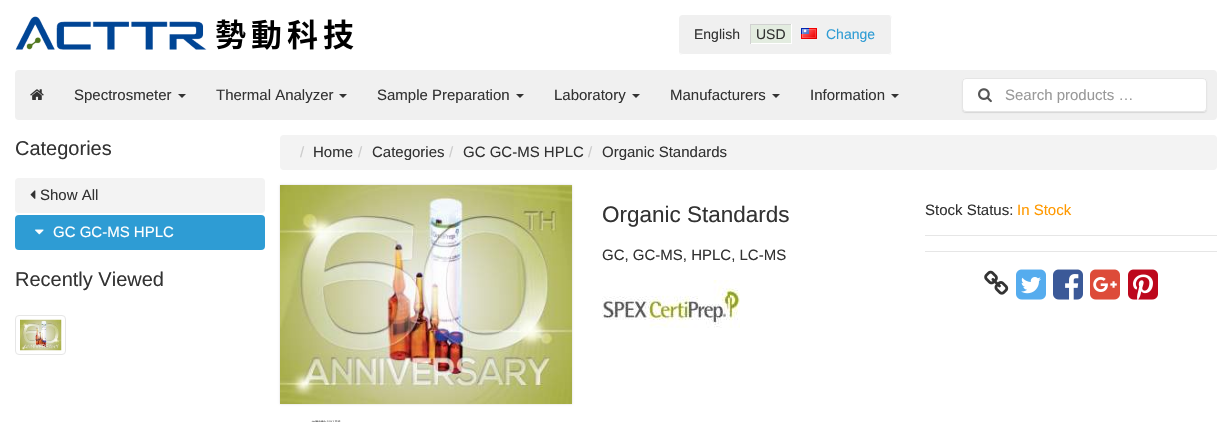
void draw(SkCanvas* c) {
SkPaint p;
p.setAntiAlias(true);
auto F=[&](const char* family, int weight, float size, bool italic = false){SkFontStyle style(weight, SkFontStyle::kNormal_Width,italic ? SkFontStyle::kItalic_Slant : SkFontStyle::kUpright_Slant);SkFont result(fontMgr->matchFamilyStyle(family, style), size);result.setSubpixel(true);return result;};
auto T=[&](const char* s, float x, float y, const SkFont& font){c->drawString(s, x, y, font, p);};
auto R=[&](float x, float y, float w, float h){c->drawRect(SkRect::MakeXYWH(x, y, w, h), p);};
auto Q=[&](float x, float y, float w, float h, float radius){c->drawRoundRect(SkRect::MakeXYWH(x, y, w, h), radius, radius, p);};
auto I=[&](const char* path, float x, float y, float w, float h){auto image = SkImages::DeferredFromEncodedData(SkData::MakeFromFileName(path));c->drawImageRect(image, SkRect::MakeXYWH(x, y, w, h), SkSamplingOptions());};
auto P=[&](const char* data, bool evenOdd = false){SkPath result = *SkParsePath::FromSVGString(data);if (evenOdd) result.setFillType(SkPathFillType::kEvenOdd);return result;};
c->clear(0xffffffff);
I("1.png",15,16,339,34);
p.setColor(0xfff0f0f0);
Q(679,15,213,40,4);
p.setColor(0xffffffff);
c->drawPath(P("M683 15h205c2 0 4 2 4 4v32c0 2-2 4-4 4h-205c-2 0-4-2-4-4v-32c0-2 2-4 4-4zm0 0h205c2 0 3 2 3 4v32c0 2-1 3-3 3h-205c-2 0-4-1-4-3v-32c0-2 2-4 4-4z",true),p);
auto f1 = F("Liberation Sans",400,14);
p.setColor(0xff333333);
T("English",694,39,f1);
p.setColor(0xffe3ece0);
R(751,25,40,18);
p.setColor(0xff333333);
T("USD",756,39,f1);
p.setColor(0xffd1d1d1);
R(750,24,42,1);
p.setColor(0xffffffff);
R(791,24,1,20);
R(750,43,42,1);
p.setColor(0xffd1d1d1);
R(750,24,1,20);
I("2.png",801,28,16,11);
p.setColor(0xff2e9cd4);
T("Change",826,39,f1);
p.setColor(0xfff0f0f0);
Q(15,70,1202,50,4);
I("3.png",30,89,14,11);
auto f2 = F("Liberation Sans",400,15);
p.setColor(0xff333333);
T("Spectrosmeter",74,100,f2);
c->drawPath(P("M178 94h8l-4 4z"),p);
T("Thermal Analyzer",216,100,f2);
c->drawPath(P("M339 94h8l-4 4z"),p);
T("Sample Preparation",377,100,f2);
c->drawPath(P("M516 94h8l-4 4z"),p);
T("Laboratory",554,100,f2);
c->drawPath(P("M632 94h8l-4 4z"),p);
T("Manufacturers",670,100,f2);
c->drawPath(P("M772 94h8l-4 4z"),p);
T("Information",810,100,f2);
c->drawPath(P("M891 94h8l-4 4z"),p);
p.setColor(0x1a000000);
p.setMaskFilter(SkMaskFilter::MakeBlur(kNormal_SkBlurStyle, .5));
c->drawRoundRect(SkRect::MakeXYWH(962,79,245,34),4,4,p);
p.setMaskFilter(nullptr);
p.setColor(0xffffffff);
Q(962,78,245,34,4);
p.setStroke(true);
p.setStrokeWidth(1);
p.setColor(0x1a000000);
c->drawRoundRect(SkRect::MakeXYWH(962.5,78.5,244,33),3.5,3.5,p);
I("4.png",978,88,14,15);
p.setStroke(false);
p.setColor(0xff999999);
T("Search products …",1005,100,f2);
auto f3 = F("Liberation Sans",400,20);
p.setColor(0xff333333);
T("Categories",15,155,f3);
p.setColor(0xfff3f3f3);
Q(15,178,250,35,4);
I("5.png",30,190,6,9);
p.setColor(0xff333333);
T("Show All",40,200,f2);
p.setColor(0xff2e9cd4);
Q(15,215,250,35,4);
I("6.png",35,229,9,6);
p.setColor(0xffffffff);
T("GC GC-MS HPLC",53,237,f2);
p.setColor(0xff333333);
T("Recently Viewed",15,286,f3);
p.setStroke(true);
p.setColor(0xffe6e6e6);
c->drawRoundRect(SkRect::MakeXYWH(15.5,315.5,50,39),3.5,3.5,p);
I("7.png",20,319,42,32);
p.setStroke(false);
p.setColor(0xfff3f3f3);
Q(280,135,937,35,4);
p.setColor(0xffcccccc);
T("/",300,157,f2);
p.setColor(0xff333333);
T("Home",313,157,f2);
p.setColor(0xffcccccc);
T("/",358,157,f2);
p.setColor(0xff333333);
T("Categories",372,157,f2);
p.setColor(0xffcccccc);
T("/",449,157,f2);
p.setColor(0xff333333);
T("GC GC-MS HPLC",463,157,f2);
p.setColor(0xffcccccc);
T("/",588,157,f2);
p.setColor(0xff333333);
T("Organic Standards",602,157,f2);
p.setColor(0x26000000);
p.setMaskFilter(SkMaskFilter::MakeBlur(kNormal_SkBlurStyle, 1));
c->drawRect(SkRect::MakeXYWH(280,185,292,219),p);
p.setMaskFilter(nullptr);
I("8.png",280,185,292,219);
I("9.png",311,420,30,2);
auto f4 = F("Liberation Sans",400,22.5);
p.setColor(0xff333333);
T("Organic Standards",602,222,f4);
T("GC, GC-MS, HPLC, LC-MS",602,260,f2);
I("10.png",602,280,138,48);
T("Stock Status:",925,215,f2);
p.setColor(0xffff9900);
T("In Stock",1017,215,f2);
p.setColor(0xffe6e6e6);
R(925,235,292,1);
R(925,251,292,1);
I("11.png",984,270,25,25);
I("12.png",1016,269,30,31);
I("13.png",1053,269,30,31);
I("14.png",1090,269,30,31);
I("15.png",1128,269,30,31);
}
